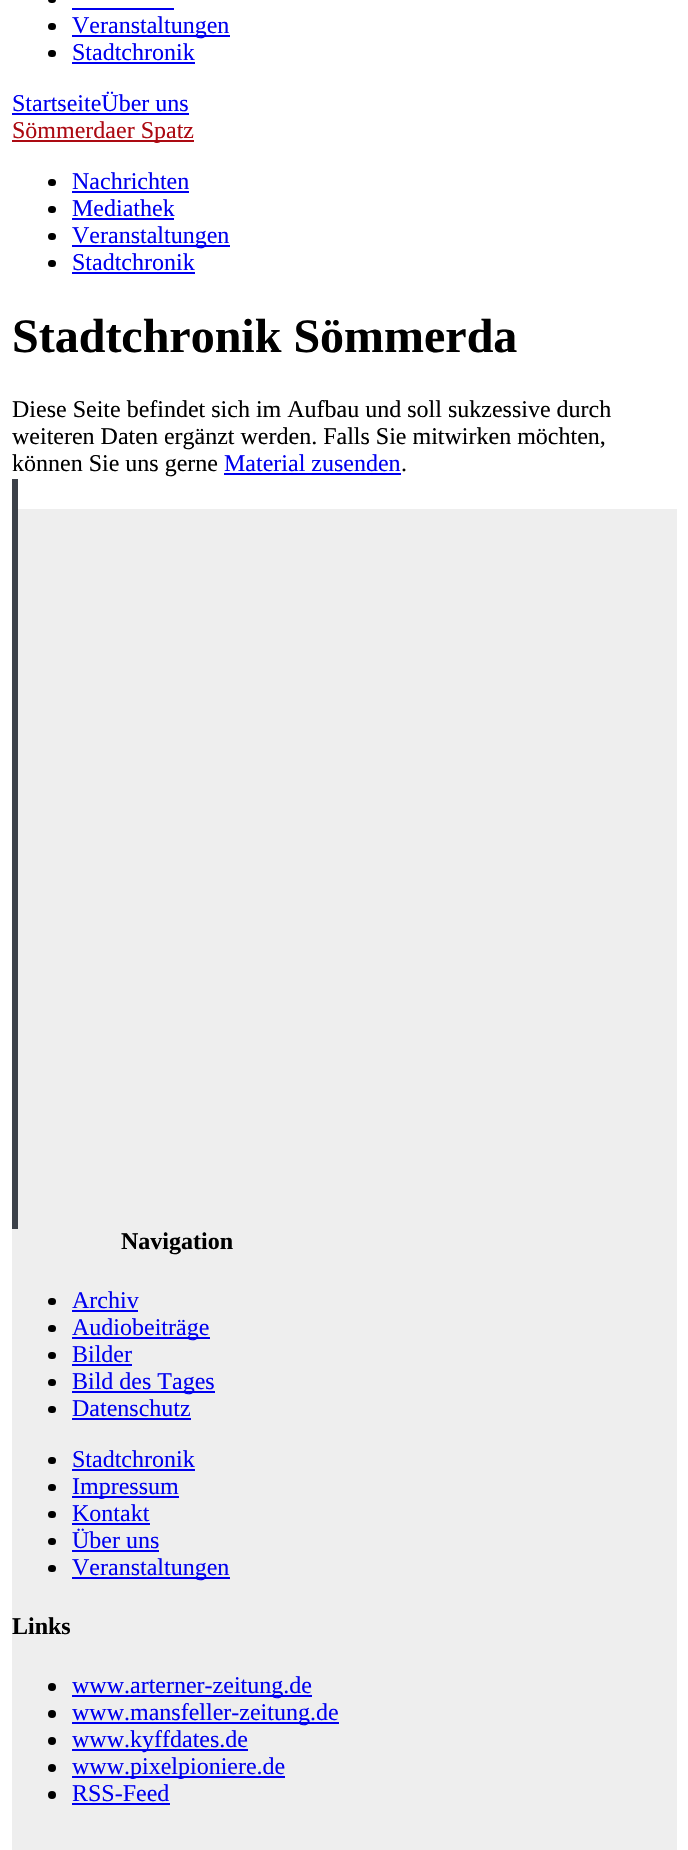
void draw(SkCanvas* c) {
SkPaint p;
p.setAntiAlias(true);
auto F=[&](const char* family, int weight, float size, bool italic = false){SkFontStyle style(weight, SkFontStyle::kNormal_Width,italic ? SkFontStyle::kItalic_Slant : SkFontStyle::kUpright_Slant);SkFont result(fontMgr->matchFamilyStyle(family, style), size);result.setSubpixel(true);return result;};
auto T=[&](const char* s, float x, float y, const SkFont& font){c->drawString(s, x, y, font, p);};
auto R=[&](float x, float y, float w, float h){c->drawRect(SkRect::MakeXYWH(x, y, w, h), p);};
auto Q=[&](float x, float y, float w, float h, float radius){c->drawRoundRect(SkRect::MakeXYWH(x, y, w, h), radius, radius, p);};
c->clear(0xffffffff);
p.setColor(0xff000000);
Q(48,-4,8,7,3.5);
p.setColor(0xff0000ee);
R(72,8,102,2);
p.setColor(0xff000000);
Q(48,23,8,7,3.5);
p.setColor(0xff0000ee);
R(72,35,158,2);
auto f1 = F("Liberation Serif",400,24);
T("Veranstaltungen",72,33,f1);
p.setColor(0xff000000);
Q(48,50,8,7,3.5);
p.setColor(0xff0000ee);
T("Stadtchronik",72,60,f1);
R(72,62,123,2);
T("StartseiteÜber uns",12,111,f1);
R(12,113,177,2);
p.setColor(0xffac0a12);
R(12,140,182,2);
T("Sömmerdaer Spatz",12,138,f1);
p.setColor(0xff000000);
Q(48,179,8,7,3.5);
p.setColor(0xff0000ee);
T("Nachrichten",72,189,f1);
R(72,191,117,2);
p.setColor(0xff000000);
Q(48,206,8,7,3.5);
p.setColor(0xff0000ee);
T("Mediathek",72,216,f1);
R(72,218,102,2);
p.setColor(0xff000000);
Q(48,233,8,7,3.5);
p.setColor(0xff0000ee);
R(72,245,158,2);
T("Veranstaltungen",72,243,f1);
p.setColor(0xff000000);
Q(48,260,8,7,3.5);
p.setColor(0xff0000ee);
T("Stadtchronik",72,270,f1);
R(72,272,123,2);
auto f2 = F("Liberation Serif",700,48);
p.setColor(0xff000000);
T("Stadtchronik Sömmerda",12,352,f2);
T("Diese Seite befindet sich im Aufbau und soll sukzessive durch",12,417,f1);
T("weiteren Daten ergänzt werden. Falls Sie mitwirken möchten,",12,444,f1);
T("können Sie uns gerne",12,471,f1);
p.setColor(0xff0000ee);
T("Material zusenden",224,471,f1);
R(224,473,177,2);
p.setColor(0xff000000);
T(".",401,471,f1);
p.setColor(0xffeeeeee);
R(12,509,665,1341);
p.setColor(0xff3c4149);
R(12,479,6,750);
auto f3 = F("Liberation Serif",700,24);
p.setColor(0xff000000);
T("Navigation",121,1249,f3);
Q(48,1298,8,7,3.5);
p.setColor(0xff0000ee);
T("Archiv",72,1308,f1);
R(72,1310,66,2);
p.setColor(0xff000000);
Q(48,1325,8,7,3.5);
p.setColor(0xff0000ee);
R(72,1337,138,2);
T("Audiobeiträge",72,1335,f1);
p.setColor(0xff000000);
Q(48,1352,8,7,3.5);
p.setColor(0xff0000ee);
T("Bilder",72,1362,f1);
R(72,1364,60,2);
p.setColor(0xff000000);
Q(48,1379,8,7,3.5);
p.setColor(0xff0000ee);
R(72,1391,143,2);
T("Bild des Tages",72,1389,f1);
p.setColor(0xff000000);
Q(48,1406,8,7,3.5);
p.setColor(0xff0000ee);
T("Datenschutz",72,1416,f1);
R(72,1418,119,2);
p.setColor(0xff000000);
Q(48,1457,8,7,3.5);
p.setColor(0xff0000ee);
T("Stadtchronik",72,1467,f1);
R(72,1469,123,2);
p.setColor(0xff000000);
Q(48,1484,8,7,3.5);
p.setColor(0xff0000ee);
R(72,1496,107,2);
T("Impressum",72,1494,f1);
p.setColor(0xff000000);
Q(48,1511,8,7,3.5);
p.setColor(0xff0000ee);
T("Kontakt",72,1521,f1);
R(72,1523,78,2);
p.setColor(0xff000000);
Q(48,1538,8,7,3.5);
p.setColor(0xff0000ee);
T("Über uns",72,1548,f1);
R(72,1550,87,2);
p.setColor(0xff000000);
Q(48,1565,8,7,3.5);
p.setColor(0xff0000ee);
R(72,1577,158,2);
T("Veranstaltungen",72,1575,f1);
p.setColor(0xff000000);
T("Links",12,1634,f3);
c->drawCircle(52,1687,4,p);
p.setColor(0xff0000ee);
R(72,1695,240,2);
T("www.arterner-zeitung.de",72,1693,f1);
p.setColor(0xff000000);
c->drawCircle(52,1714,4,p);
p.setColor(0xff0000ee);
R(72,1722,267,2);
T("www.mansfeller-zeitung.de",72,1720,f1);
p.setColor(0xff000000);
c->drawCircle(52,1741,4,p);
p.setColor(0xff0000ee);
R(72,1749,176,2);
T("www.kyffdates.de",72,1747,f1);
p.setColor(0xff000000);
c->drawCircle(52,1768,4,p);
p.setColor(0xff0000ee);
R(72,1776,213,2);
T("www.pixelpioniere.de",72,1774,f1);
p.setColor(0xff000000);
c->drawCircle(52,1795,4,p);
p.setColor(0xff0000ee);
T("RSS-Feed",72,1801,f1);
R(72,1803,98,2);
}
